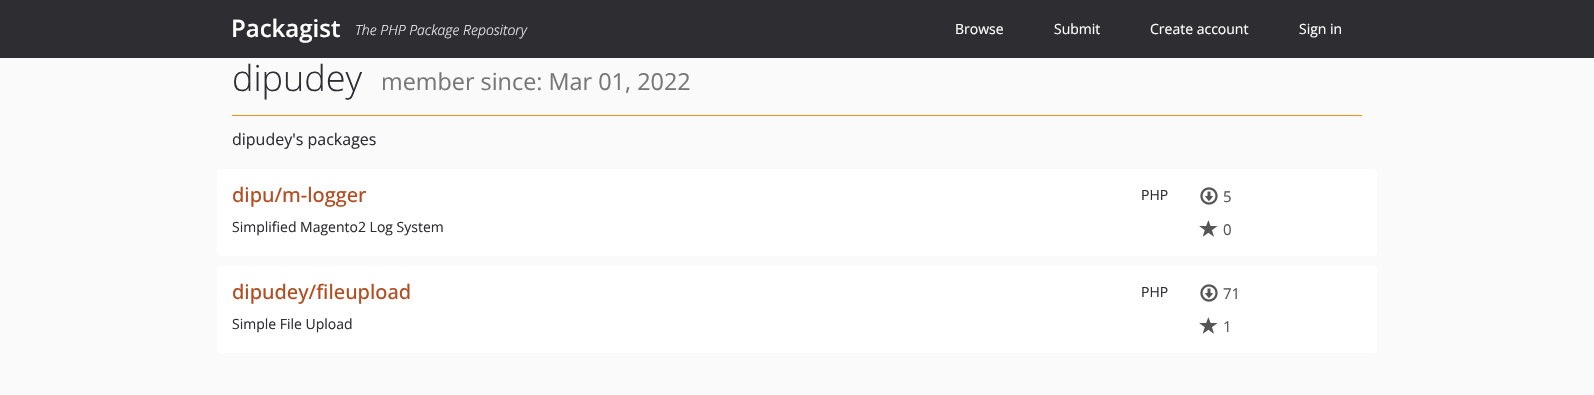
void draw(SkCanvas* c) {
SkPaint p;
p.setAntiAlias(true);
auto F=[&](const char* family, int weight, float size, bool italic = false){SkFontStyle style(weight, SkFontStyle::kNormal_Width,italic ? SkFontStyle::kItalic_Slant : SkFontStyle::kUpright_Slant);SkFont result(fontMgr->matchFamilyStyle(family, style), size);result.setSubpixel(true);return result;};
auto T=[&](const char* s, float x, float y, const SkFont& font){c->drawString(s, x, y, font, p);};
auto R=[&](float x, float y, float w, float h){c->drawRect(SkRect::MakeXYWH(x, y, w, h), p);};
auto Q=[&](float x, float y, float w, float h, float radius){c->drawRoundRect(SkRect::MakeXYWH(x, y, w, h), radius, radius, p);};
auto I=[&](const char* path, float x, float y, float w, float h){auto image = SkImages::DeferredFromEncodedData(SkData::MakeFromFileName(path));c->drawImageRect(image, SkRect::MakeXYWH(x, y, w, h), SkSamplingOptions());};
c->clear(0xfffafafa);
p.setColor(0xff2d2d32);
R(0,0,1594,58);
auto f1 = F("Open Sans",600,24);
p.setColor(0xffffffff);
T("Packagist",231,37,f1);
auto f2 = F("Open Sans",300,14,true);
p.setColor(0xfff3f4f5);
T("The PHP Package Repository",355,35,f2);
auto f3 = F("Open Sans",400,14);
p.setColor(0xffffffff);
T("Browse",955,34,f3);
T("Submit",1054,34,f3);
T("Create account",1150,34,f3);
T("Sign in",1299,34,f3);
p.setColor(0xfff28d1a);
R(232,115,1130,1);
auto f4 = F("Open Sans",300,36);
p.setColor(0xff2d2d32);
T("dipudey",232,91,f4);
auto f5 = F("Open Sans",400,23.4);
p.setColor(0xff777777);
T("member since: Mar 01, 2022",381,90,f5);
auto f6 = F("Open Sans",400,16);
p.setColor(0xff2d2d32);
T("dipudey's packages",232,145,f6);
p.setColor(0xffffffff);
Q(217,169,1160,87,4);
auto f7 = F("Open Sans",500,20);
p.setColor(0xffb34e22);
T("dipu/m-logger",232,202,f7);
p.setColor(0xff2d2d32);
T("PHP",1141,200,f3);
T("Simplified Magento2 Log System",232,232,f3);
I("1.png",1200,187,18,18);
auto f8 = F("Open Sans",400,15);
p.setColor(0xff555555);
T("5",1223,202,f8);
I("2.png",1199,220,19,17);
T("0",1223,235,f8);
p.setColor(0xffffffff);
Q(217,266,1160,87,4);
p.setColor(0xffb34e22);
T("dipudey/fileupload",232,299,f7);
p.setColor(0xff2d2d32);
T("PHP",1141,297,f3);
T("Simple File Upload",232,329,f3);
I("1.png",1200,284,18,18);
p.setColor(0xff555555);
T("71",1223,299,f8);
I("2.png",1199,317,19,17);
T("1",1223,332,f8);
}
